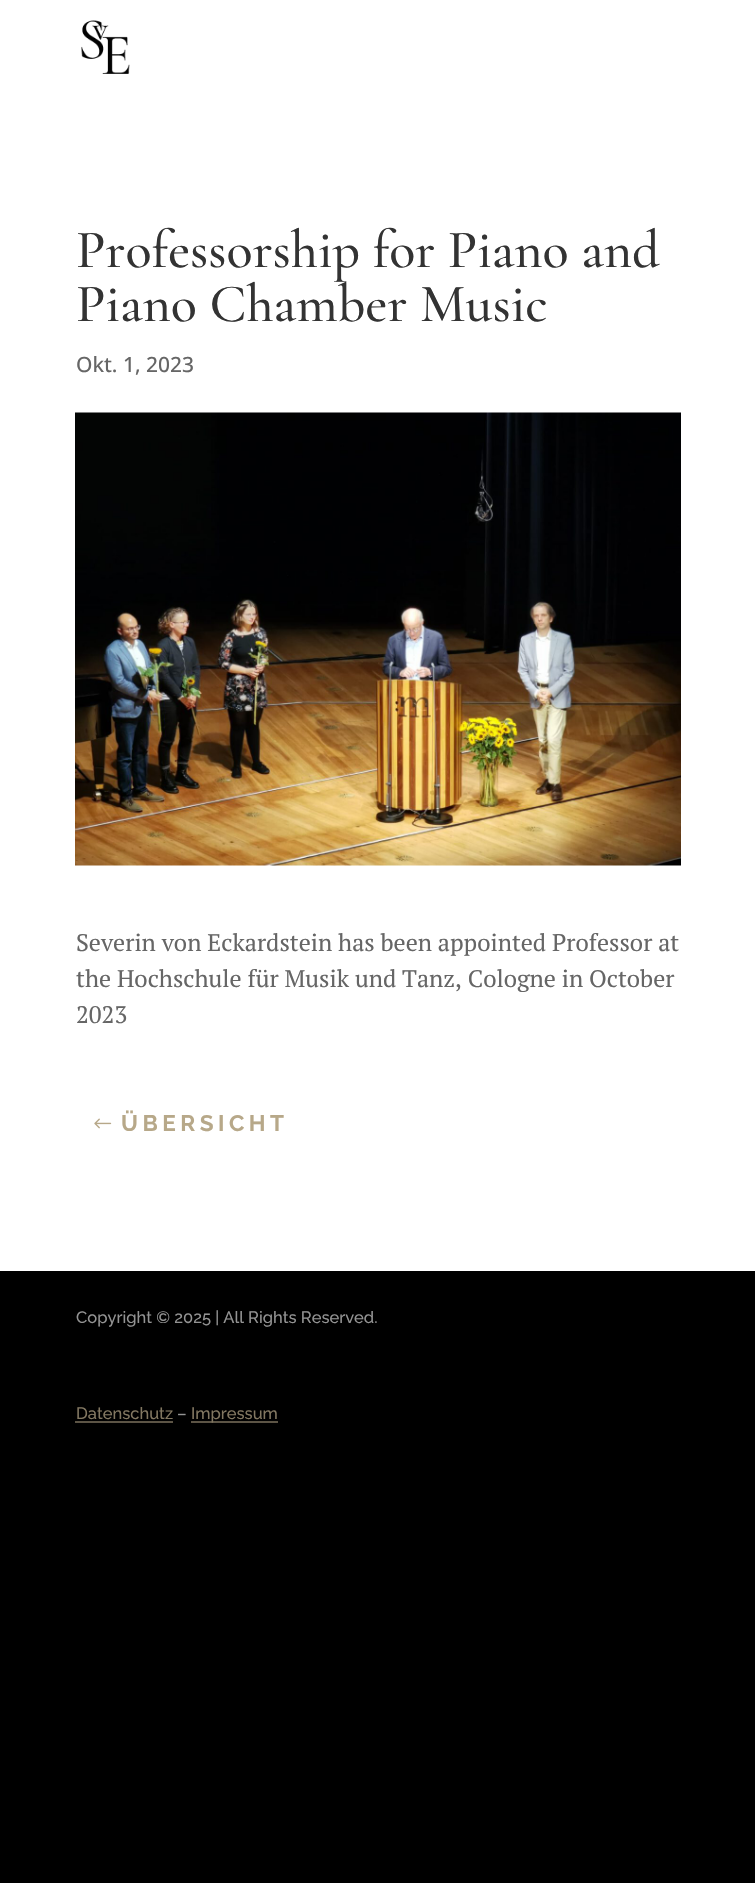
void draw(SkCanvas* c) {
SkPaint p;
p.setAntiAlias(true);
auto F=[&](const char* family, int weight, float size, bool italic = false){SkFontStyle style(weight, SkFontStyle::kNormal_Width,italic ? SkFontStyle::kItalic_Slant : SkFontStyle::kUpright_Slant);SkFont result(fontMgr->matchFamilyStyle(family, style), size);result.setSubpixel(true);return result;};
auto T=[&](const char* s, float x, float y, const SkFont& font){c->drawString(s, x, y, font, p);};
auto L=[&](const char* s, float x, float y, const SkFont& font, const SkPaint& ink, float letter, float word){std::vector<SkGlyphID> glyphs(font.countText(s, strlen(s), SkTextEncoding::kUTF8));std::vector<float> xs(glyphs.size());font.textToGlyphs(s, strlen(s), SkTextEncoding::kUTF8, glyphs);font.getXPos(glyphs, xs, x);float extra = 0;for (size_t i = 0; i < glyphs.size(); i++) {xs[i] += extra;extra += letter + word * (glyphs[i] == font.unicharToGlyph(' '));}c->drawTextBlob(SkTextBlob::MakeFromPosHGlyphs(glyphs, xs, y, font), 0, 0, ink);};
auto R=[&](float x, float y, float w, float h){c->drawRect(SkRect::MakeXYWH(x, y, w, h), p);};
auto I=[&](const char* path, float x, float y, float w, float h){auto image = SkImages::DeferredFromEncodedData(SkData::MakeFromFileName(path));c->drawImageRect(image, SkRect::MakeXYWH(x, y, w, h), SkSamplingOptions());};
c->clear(0xff000000);
p.setColor(0xffffffff);
R(0,0,755,1271);
I("1.png",81,20,49,54);
auto f1 = F("Cormorant Garamond",500,54);
p.setColor(0xff333333);
T("Professorship for Piano and",76,267,f1);
T("Piano Chamber Music",76,321,f1);
auto f2 = F("Open Sans",500,21);
p.setColor(0xff666666);
T("Okt. 1, 2023",76,372,f2);
I("2.png",75,412,606,454);
auto f3 = F("PT Serif",400,24);
T("Severin von Eckardstein has been appointed Professor at",76,951,f3);
T("the Hochschule für Musik und Tanz, Cologne in October",76,987,f3);
T("2023",76,1023,f3);
I("3.png",94,1118,18,11);
auto f4 = F("Raleway",100,22.5);
p.setColor(0xffb7a889);
L("ÜBERSICHT",121,1131,f4,p,4.5,0);
auto f5 = F("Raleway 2",100,16.5);
p.setColor(0xff939393);
T("Copyright © 2025 | All Rights Reserved.",76,1323,f5);
p.setColor(0xff827761);
T("Datenschutz",76,1419,f5);
p.setColor(0xff5c5445);
R(75,1421,98,2);
p.setColor(0xff939393);
T("–",177,1419,f5);
p.setColor(0xff5c5445);
R(191,1421,87,2);
p.setColor(0xff827761);
T("Impressum",191,1419,f5);
}
